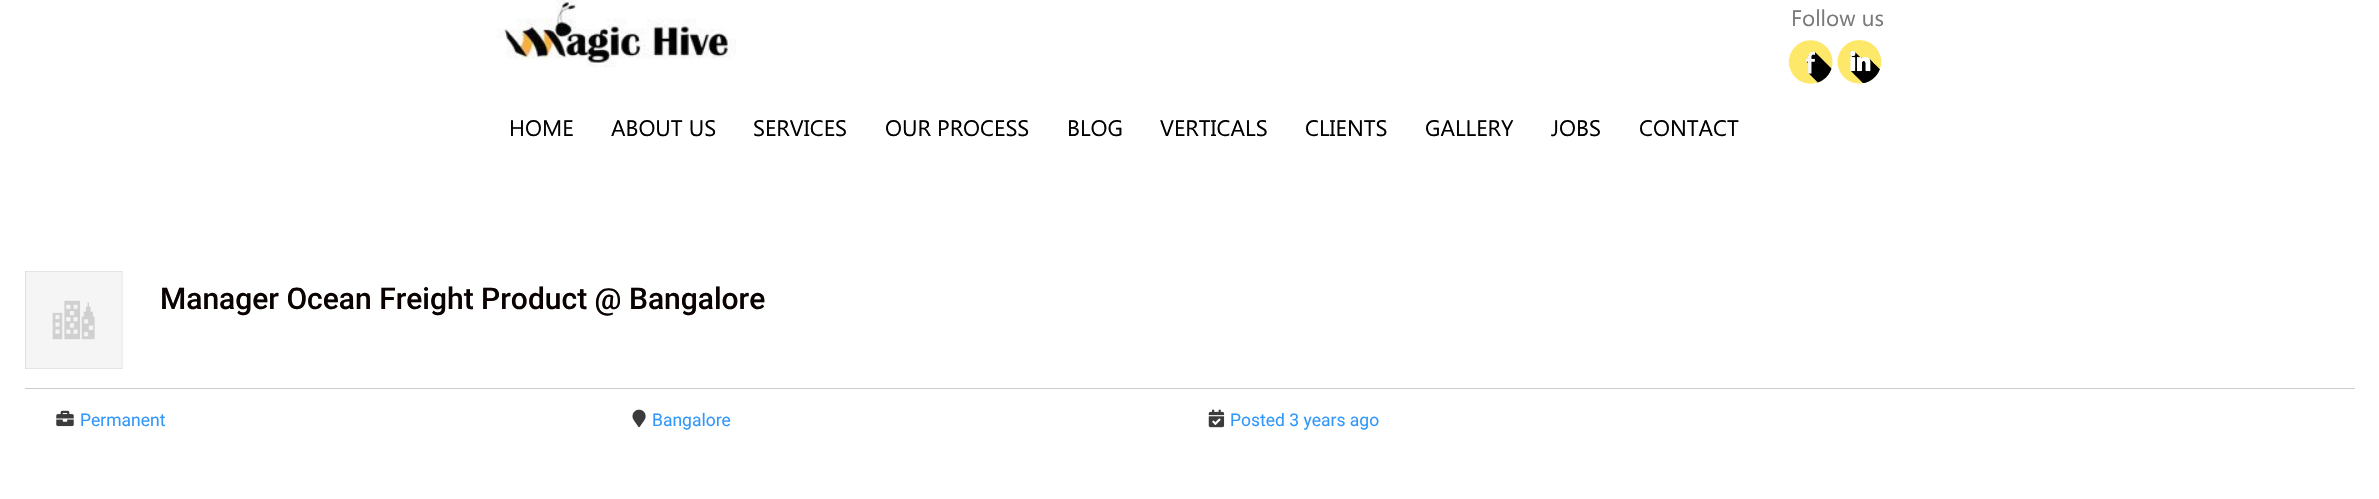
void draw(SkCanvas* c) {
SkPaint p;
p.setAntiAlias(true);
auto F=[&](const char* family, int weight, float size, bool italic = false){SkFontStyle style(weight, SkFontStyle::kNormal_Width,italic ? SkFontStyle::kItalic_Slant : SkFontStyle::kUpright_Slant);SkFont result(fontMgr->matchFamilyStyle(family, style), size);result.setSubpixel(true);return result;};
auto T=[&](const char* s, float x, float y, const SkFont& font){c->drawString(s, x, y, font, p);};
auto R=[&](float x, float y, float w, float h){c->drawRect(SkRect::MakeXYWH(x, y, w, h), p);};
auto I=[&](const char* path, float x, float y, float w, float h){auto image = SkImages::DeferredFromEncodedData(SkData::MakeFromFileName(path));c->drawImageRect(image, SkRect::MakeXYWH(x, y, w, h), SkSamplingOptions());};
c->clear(0xffffffff);
I("1.png",496,0,240,68);
auto f1 = F("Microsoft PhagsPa",400,22.5);
p.setColor(0xff7a7a7a);
T("Follow us",1791,26,f1);
I("2.png",1788,40,45,44);
I("3.png",1837,40,45,44);
p.setColor(0xff000000);
T("HOME",509,136,f1);
T("ABOUT US",611,136,f1);
T("SERVICES",753,136,f1);
T("OUR PROCESS",885,136,f1);
T("BLOG",1067,136,f1);
T("VERTICALS",1160,136,f1);
T("CLIENTS",1305,136,f1);
T("GALLERY",1425,136,f1);
T("JOBS",1551,136,f1);
T("CONTACT",1639,136,f1);
I("4.png",25,271,98,98);
auto f2 = F("Roboto",500,30);
p.setColor(0xff0a0101);
T("Manager Ocean Freight Product @ Bangalore",160,309,f2);
p.setColor(0xffcccccc);
R(25,388,2330,1);
I("5.png",56,410,18,17);
auto f3 = F("Roboto",400,17.5);
p.setColor(0xff3297fa);
T("Permanent",80,426,f3);
I("6.png",632,409,14,19);
T("Bangalore",652,426,f3);
I("7.png",1208,409,17,19);
T("Posted 3 years ago",1230,426,f3);
}
